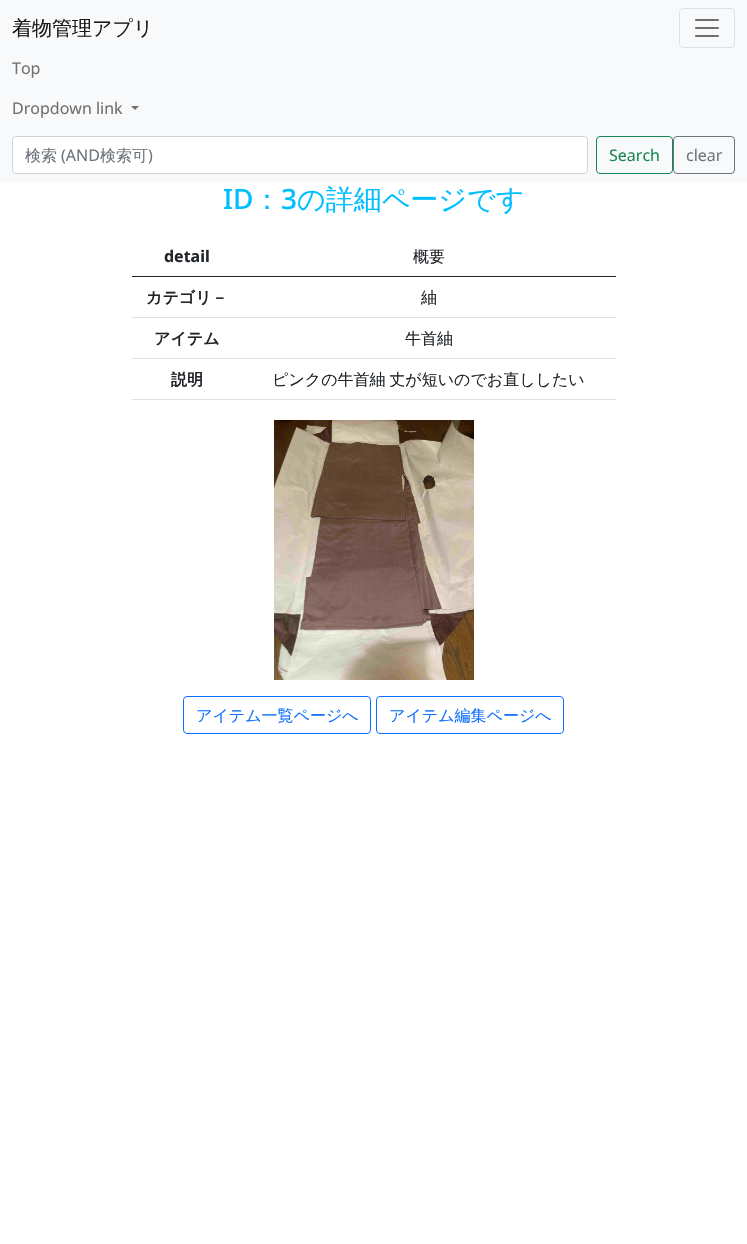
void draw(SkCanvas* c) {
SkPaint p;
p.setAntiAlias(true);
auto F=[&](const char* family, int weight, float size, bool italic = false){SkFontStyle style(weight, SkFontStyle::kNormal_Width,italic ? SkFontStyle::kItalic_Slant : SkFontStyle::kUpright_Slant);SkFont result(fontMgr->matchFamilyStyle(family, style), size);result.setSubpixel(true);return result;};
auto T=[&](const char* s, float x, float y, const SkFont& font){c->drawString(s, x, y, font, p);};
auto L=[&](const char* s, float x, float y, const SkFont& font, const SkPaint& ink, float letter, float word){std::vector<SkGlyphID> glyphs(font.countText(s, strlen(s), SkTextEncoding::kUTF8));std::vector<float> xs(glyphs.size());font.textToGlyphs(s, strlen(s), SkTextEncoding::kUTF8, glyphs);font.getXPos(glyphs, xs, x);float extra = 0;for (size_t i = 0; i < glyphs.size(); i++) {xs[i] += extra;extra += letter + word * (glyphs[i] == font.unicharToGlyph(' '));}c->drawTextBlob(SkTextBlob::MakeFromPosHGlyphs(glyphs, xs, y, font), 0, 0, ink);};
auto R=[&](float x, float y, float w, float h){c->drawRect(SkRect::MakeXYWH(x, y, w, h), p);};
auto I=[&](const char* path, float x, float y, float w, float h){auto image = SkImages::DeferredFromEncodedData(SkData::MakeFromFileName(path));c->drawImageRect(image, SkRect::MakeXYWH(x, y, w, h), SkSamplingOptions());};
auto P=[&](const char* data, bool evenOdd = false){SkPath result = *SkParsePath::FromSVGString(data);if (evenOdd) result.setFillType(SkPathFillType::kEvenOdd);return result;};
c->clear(0xffffffff);
p.setColor(0xfff8f9fa);
R(0,0,747,182);
auto f1 = F("WenQuanYi Zen Hei",500,20);
p.setColor(0xff191919);
T("着物管理アプリ",12,35,f1);
p.setStroke(true);
p.setStrokeWidth(1);
p.setColor(0xffdfe0e1);
c->drawRoundRect(SkRect::MakeXYWH(679.5,8.5,55,39),3.5,3.5,p);
I("1.png",695,19,24,18);
auto f2 = F("Noto Sans",400,16);
p.setStroke(false);
p.setColor(0xff707071);
T("Top",12,74,f2);
T("Dropdown link",12,114,f2);
c->drawPath(P("M131 106h8l-4 4z"),p);
p.setColor(0xffffffff);
c->drawRoundRect(SkRect::MakeXYWH(12.5,136.5,575,37),3.5,3.5,p);
p.setStroke(true);
p.setColor(0xffced4da);
c->drawRoundRect(SkRect::MakeXYWH(12.5,136.5,575,37),3.5,3.5,p);
auto f3 = F("WenQuanYi Zen Hei",500,16);
p.setStroke(false);
p.setColor(0xff6c757d);
T("検索",25,161,f3);
T("(AND",61,161,f2);
T("検索可",100,161,f3);
T(")",148,161,f2);
p.setStroke(true);
p.setColor(0xff198754);
c->drawRoundRect(SkRect::MakeXYWH(596.5,136.5,76,37),3.5,3.5,p);
p.setStroke(false);
T("Search",609,161,f2);
p.setStroke(true);
p.setColor(0xff6c757d);
c->drawRoundRect(SkRect::MakeXYWH(673.5,136.5,61,37),3.5,3.5,p);
p.setStroke(false);
T("clear",686,161,f2);
auto f4 = F("Noto Sans",500,28);
p.setColor(0xff00bfff);
T("ID",223,209,f4);
auto f5 = F("WenQuanYi Zen Hei",500,28);
T("：",253,209,f5);
T("3",281,209,f4);
T("の詳細ページです",297,209,f5);
auto f6 = F("Noto Sans",700,16);
p.setColor(0xff212529);
T("detail",164,262,f6);
R(132,276,484,1);
T("概要",413,262,f3);
auto f7 = F("WenQuanYi Zen Hei",700,16);
T("カテゴリ－",146,303,f7);
p.setColor(0xffdee2e6);
R(132,317,484,1);
p.setColor(0xff212529);
T("紬",421,303,f3);
T("アイテム",154,344,f7);
p.setColor(0xffdee2e6);
R(132,358,484,1);
p.setColor(0xff212529);
T("牛首紬",405,344,f3);
T("説明",171,385,f7);
p.setColor(0xffdee2e6);
R(132,399,484,1);
p.setColor(0xff212529);
L("ピンクの牛首紬 丈が短いのでお直ししたい",272,385,f3,p,0,-1);
I("2.png",274,420,200,260);
p.setStroke(true);
p.setColor(0xff0d6efd);
c->drawRoundRect(SkRect::MakeXYWH(183.5,696.5,187,37),3.5,3.5,p);
p.setStroke(false);
T("アイテム一覧ページへ",196,721,f3);
p.setStroke(true);
c->drawRoundRect(SkRect::MakeXYWH(376.5,696.5,187,37),3.5,3.5,p);
p.setStroke(false);
T("アイテム編集ページへ",389,721,f3);
}
